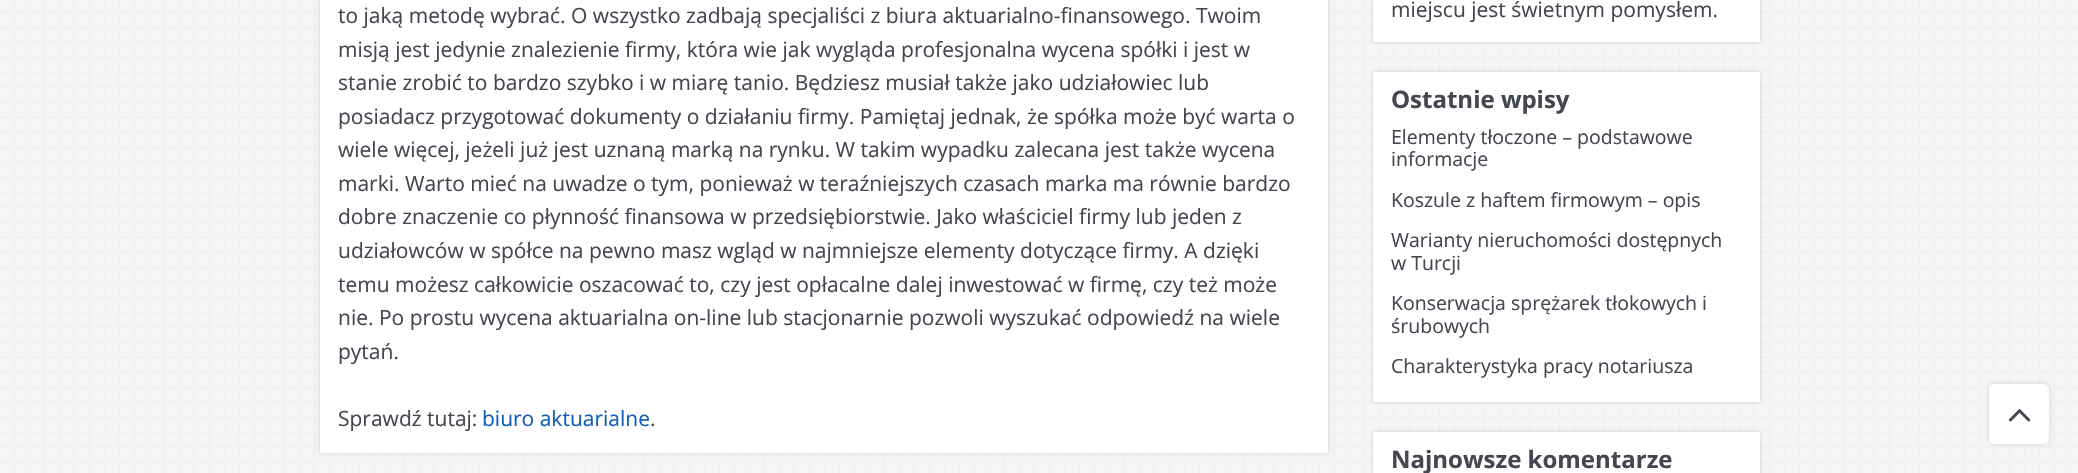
void draw(SkCanvas* c) {
SkPaint p;
p.setAntiAlias(true);
auto F=[&](const char* family, int weight, float size, bool italic = false){SkFontStyle style(weight, SkFontStyle::kNormal_Width,italic ? SkFontStyle::kItalic_Slant : SkFontStyle::kUpright_Slant);SkFont result(fontMgr->matchFamilyStyle(family, style), size);result.setSubpixel(true);return result;};
auto T=[&](const char* s, float x, float y, const SkFont& font){c->drawString(s, x, y, font, p);};
auto R=[&](float x, float y, float w, float h){c->drawRect(SkRect::MakeXYWH(x, y, w, h), p);};
auto Q=[&](float x, float y, float w, float h, float radius){c->drawRoundRect(SkRect::MakeXYWH(x, y, w, h), radius, radius, p);};
auto I=[&](const char* path, float x, float y, float w, float h){auto image = SkImages::DeferredFromEncodedData(SkData::MakeFromFileName(path));c->drawImageRect(image, SkRect::MakeXYWH(x, y, w, h), SkSamplingOptions());};
c->clear(0xffffffff);
I("1.png",0,0,2078,473);
p.setColor(0xffcccccc);
p.setMaskFilter(SkMaskFilter::MakeBlur(kNormal_SkBlurStyle, 2));
c->drawRect(SkRect::MakeXYWH(320,-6,1008,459),p);
p.setMaskFilter(nullptr);
p.setColor(0xffffffff);
R(320,0,1008,453);
auto f1 = F("Open Sans",400,21);
p.setColor(0xff444650);
T("to jaką metodę wybrać. O wszystko zadbają specjaliści z biura aktuarialno-finansowego. Twoim",338,23,f1);
T("misją jest jedynie znalezienie firmy, która wie jak wygląda profesjonalna wycena spółki i jest w",338,57,f1);
T("stanie zrobić to bardzo szybko i w miarę tanio. Będziesz musiał także jako udziałowiec lub",338,90,f1);
T("posiadacz przygotować dokumenty o działaniu firmy. Pamiętaj jednak, że spółka może być warta o",338,124,f1);
T("wiele więcej, jeżeli już jest uznaną marką na rynku. W takim wypadku zalecana jest także wycena",338,157,f1);
T("marki. Warto mieć na uwadze o tym, ponieważ w teraźniejszych czasach marka ma równie bardzo",338,191,f1);
T("dobre znaczenie co płynność finansowa w przedsiębiorstwie. Jako właściciel firmy lub jeden z",338,224,f1);
T("udziałowców w spółce na pewno masz wgląd w najmniejsze elementy dotyczące firmy. A dzięki",338,258,f1);
T("temu możesz całkowicie oszacować to, czy jest opłacalne dalej inwestować w firmę, czy też może",338,292,f1);
T("nie. Po prostu wycena aktuarialna on-line lub stacjonarnie pozwoli wyszukać odpowiedź na wiele",338,325,f1);
T("pytań.",338,359,f1);
T("Sprawdź tutaj:",338,426,f1);
p.setColor(0xff105cb6);
T("biuro aktuarialne",482,426,f1);
p.setColor(0xff444650);
T(".",650,426,f1);
p.setColor(0xffcccccc);
p.setMaskFilter(SkMaskFilter::MakeBlur(kNormal_SkBlurStyle, 2));
c->drawRect(SkRect::MakeXYWH(1373,-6,387,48),p);
p.setMaskFilter(nullptr);
p.setColor(0xffffffff);
R(1373,0,387,42);
p.setColor(0xff444650);
T("miejscu jest świetnym pomysłem.",1391,17,f1);
p.setColor(0xffcccccc);
p.setMaskFilter(SkMaskFilter::MakeBlur(kNormal_SkBlurStyle, 2));
c->drawRect(SkRect::MakeXYWH(1373,72,387,330),p);
p.setMaskFilter(nullptr);
p.setColor(0xffffffff);
R(1373,72,387,330);
auto f2 = F("Open Sans",700,24);
p.setColor(0xff444650);
T("Ostatnie wpisy",1391,108,f2);
auto f3 = F("Open Sans",400,19.5);
T("Elementy tłoczone – podstawowe",1391,144,f3);
T("informacje",1391,166,f3);
T("Koszule z haftem firmowym – opis",1391,207,f3);
T("Warianty nieruchomości dostępnych",1391,247,f3);
T("w Turcji",1391,270,f3);
T("Konserwacja sprężarek tłokowych i",1391,310,f3);
T("śrubowych",1391,333,f3);
T("Charakterystyka pracy notariusza",1391,373,f3);
p.setColor(0xffcccccc);
p.setMaskFilter(SkMaskFilter::MakeBlur(kNormal_SkBlurStyle, 2));
c->drawRect(SkRect::MakeXYWH(1373,432,387,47),p);
p.setMaskFilter(nullptr);
p.setColor(0xffffffff);
R(1373,432,387,41);
p.setColor(0xff444650);
T("Najnowsze komentarze",1391,468,f2);
p.setColor(0xffcccccc);
p.setMaskFilter(SkMaskFilter::MakeBlur(kNormal_SkBlurStyle, 2));
c->drawRoundRect(SkRect::MakeXYWH(1989,384,60,60),5,5,p);
p.setMaskFilter(nullptr);
p.setColor(0xffffffff);
Q(1989,384,60,60,5);
I("2.png",2008,409,23,13);
}
